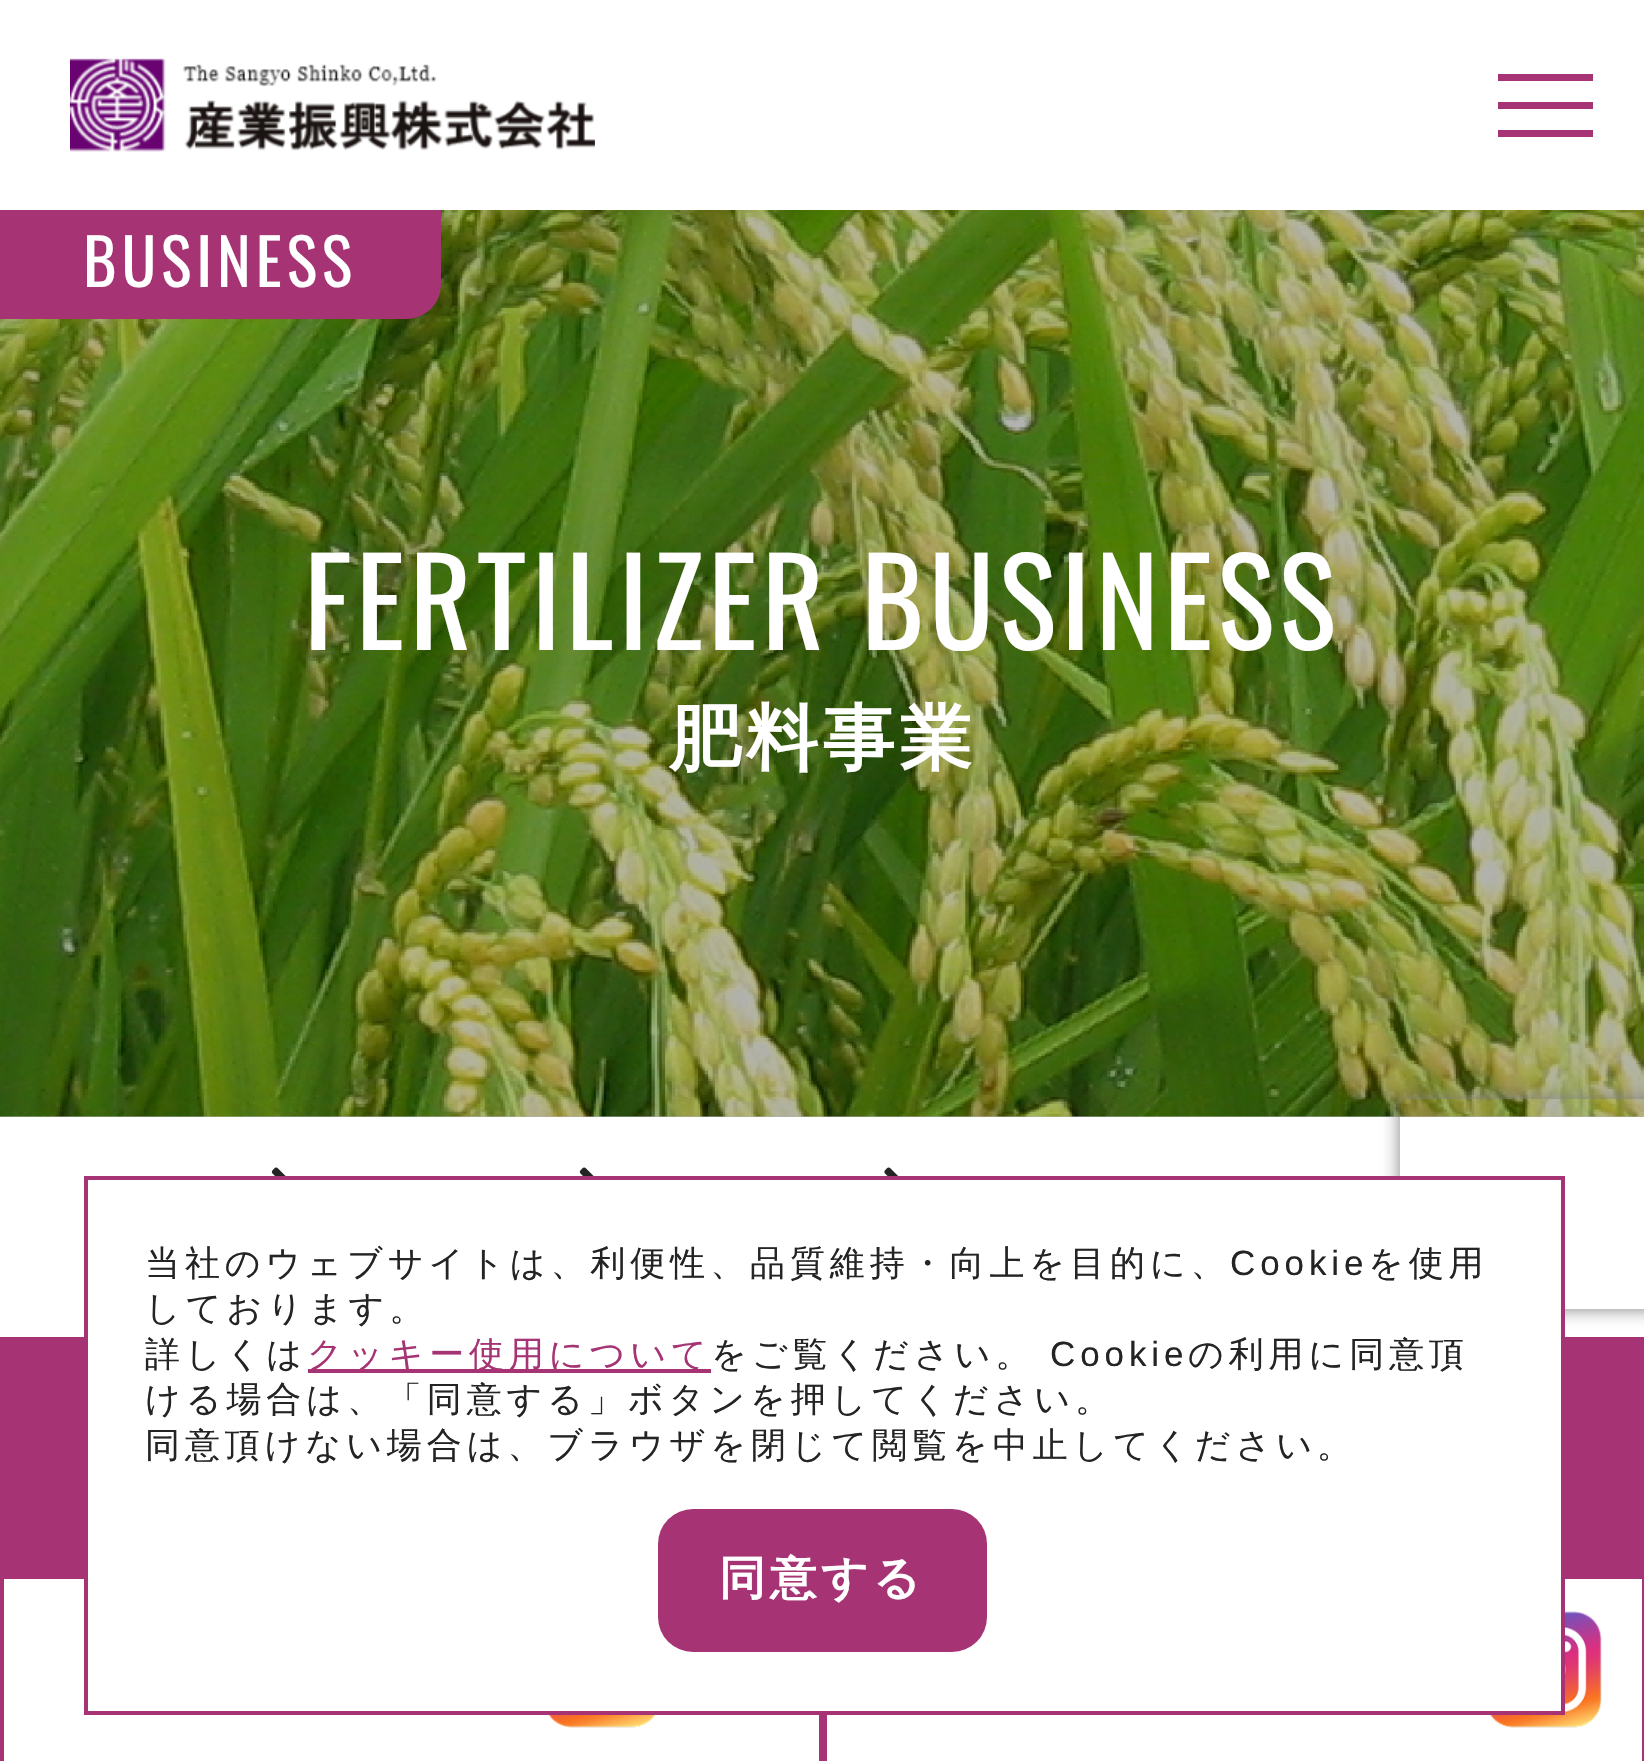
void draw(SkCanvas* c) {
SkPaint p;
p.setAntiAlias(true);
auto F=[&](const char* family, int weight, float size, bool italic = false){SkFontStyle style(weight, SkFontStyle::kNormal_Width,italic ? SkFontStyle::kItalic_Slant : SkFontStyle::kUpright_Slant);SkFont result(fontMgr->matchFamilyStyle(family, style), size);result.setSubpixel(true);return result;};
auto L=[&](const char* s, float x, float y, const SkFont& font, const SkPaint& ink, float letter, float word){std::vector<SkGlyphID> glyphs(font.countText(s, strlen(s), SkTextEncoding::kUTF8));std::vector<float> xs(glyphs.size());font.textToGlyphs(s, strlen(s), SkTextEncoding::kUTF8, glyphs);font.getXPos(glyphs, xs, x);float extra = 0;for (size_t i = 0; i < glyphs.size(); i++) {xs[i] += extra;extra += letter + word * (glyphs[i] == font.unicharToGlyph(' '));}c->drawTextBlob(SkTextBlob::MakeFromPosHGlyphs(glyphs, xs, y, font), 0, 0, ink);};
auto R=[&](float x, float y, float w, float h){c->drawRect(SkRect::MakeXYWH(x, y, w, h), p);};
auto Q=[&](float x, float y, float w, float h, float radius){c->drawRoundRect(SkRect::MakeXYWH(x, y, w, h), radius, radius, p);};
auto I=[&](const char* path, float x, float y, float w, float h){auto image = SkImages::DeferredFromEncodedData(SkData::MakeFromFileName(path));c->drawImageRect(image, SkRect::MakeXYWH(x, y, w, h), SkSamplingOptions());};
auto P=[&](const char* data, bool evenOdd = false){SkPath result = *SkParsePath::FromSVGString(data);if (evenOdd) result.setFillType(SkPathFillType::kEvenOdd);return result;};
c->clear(0xffffffff);
p.setColor(0xffb3b3b3);
R(0,1116,1644,1);
I("1.png",70,58,525,94);
p.setColor(0xffa63374);
R(1498,74,95,7);
R(1498,102,95,7);
R(1498,130,95,7);
R(0,1337,1644,424);
p.setColor(0xffffffff);
R(4,1579,815,182);
I("2.png",548,1715,108,13);
R(827,1579,815,182);
I("3.png",1490,1611,112,117);
I("4.png",0,210,1644,907);
p.setColor(0xffa63374);
c->drawPath(P("M0 210h441v74c0 19.5-15.5 35-35 35h-406z"),p);
auto f1 = F("Oswald",400,64);
p.setColor(0xffffffff);
L("BUSINESS",83,287,f1,p,4.9,0);
auto f2 = F("Oswald",400,120);
L("FERTILIZER BUSINESS",304,650,f2,p,4.9,0);
auto f3 = F("WenQuanYi Zen Hei",700,72);
L("肥料事業",669,763,f3,p,4.9,0);
I("5.png",271,1167,15,9);
I("5.png",579,1167,15,9);
I("6.png",884,1167,14,9);
c->save();
c->clipPath(P("M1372 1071h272v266h-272zm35 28h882c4 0 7 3 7 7v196c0 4-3 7-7 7h-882c-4 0-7-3-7-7v-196c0-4 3-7 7-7z",true),true);
p.setColor(0xff808080);
p.setMaskFilter(SkMaskFilter::MakeBlur(kNormal_SkBlurStyle, 9));
c->drawRoundRect(SkRect::MakeXYWH(1400,1099,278,210),7,7,p);
p.setMaskFilter(nullptr);
c->restore();
p.setColor(0xffffffff);
c->drawRect(SkRect::MakeXYWH(86,1178,1477,535),p);
p.setStroke(true);
p.setStrokeWidth(4);
p.setColor(0xffa63374);
c->drawRect(SkRect::MakeXYWH(86,1178,1477,535),p);
auto f4 = F("WenQuanYi Zen Hei",500,35);
p.setStroke(false);
p.setColor(0xff242424);
L("当社のウェブサイトは、利便性、品質維持・向上を目的に、",145,1275,f4,p,4.9,0);
auto f5 = F("Liberation Sans",400,35);
L("Cookie",1230,1275,f5,p,4.9,0);
L("を使用",1368,1275,f4,p,4.9,0);
L("しております。",145,1320,f4,p,4.9,0);
L("詳しくは",145,1366,f4,p,4.9,0);
p.setColor(0xffa63374);
R(308,1369,403,4);
L("クッキー使用について",307,1366,f4,p,4.9,0);
p.setColor(0xff242424);
L("をご覧ください。",711,1366,f4,p,4.9,0);
L("Cookie",1050,1366,f5,p,4.9,0);
L("の利用に同意頂",1188,1366,f4,p,4.9,0);
L("ける場合は、「同意する」ボタンを押してください。",145,1411,f4,p,4.9,0);
L("同意頂けない場合は、ブラウザを閉じて閲覧を中止してください。",145,1457,f4,p,4.9,0);
p.setColor(0xffa63374);
Q(658,1509,329,143,35);
auto f6 = F("WenQuanYi Zen Hei",700,46.5);
p.setColor(0xffffffff);
L("同意する",719,1594,f6,p,4.5,0);
}
